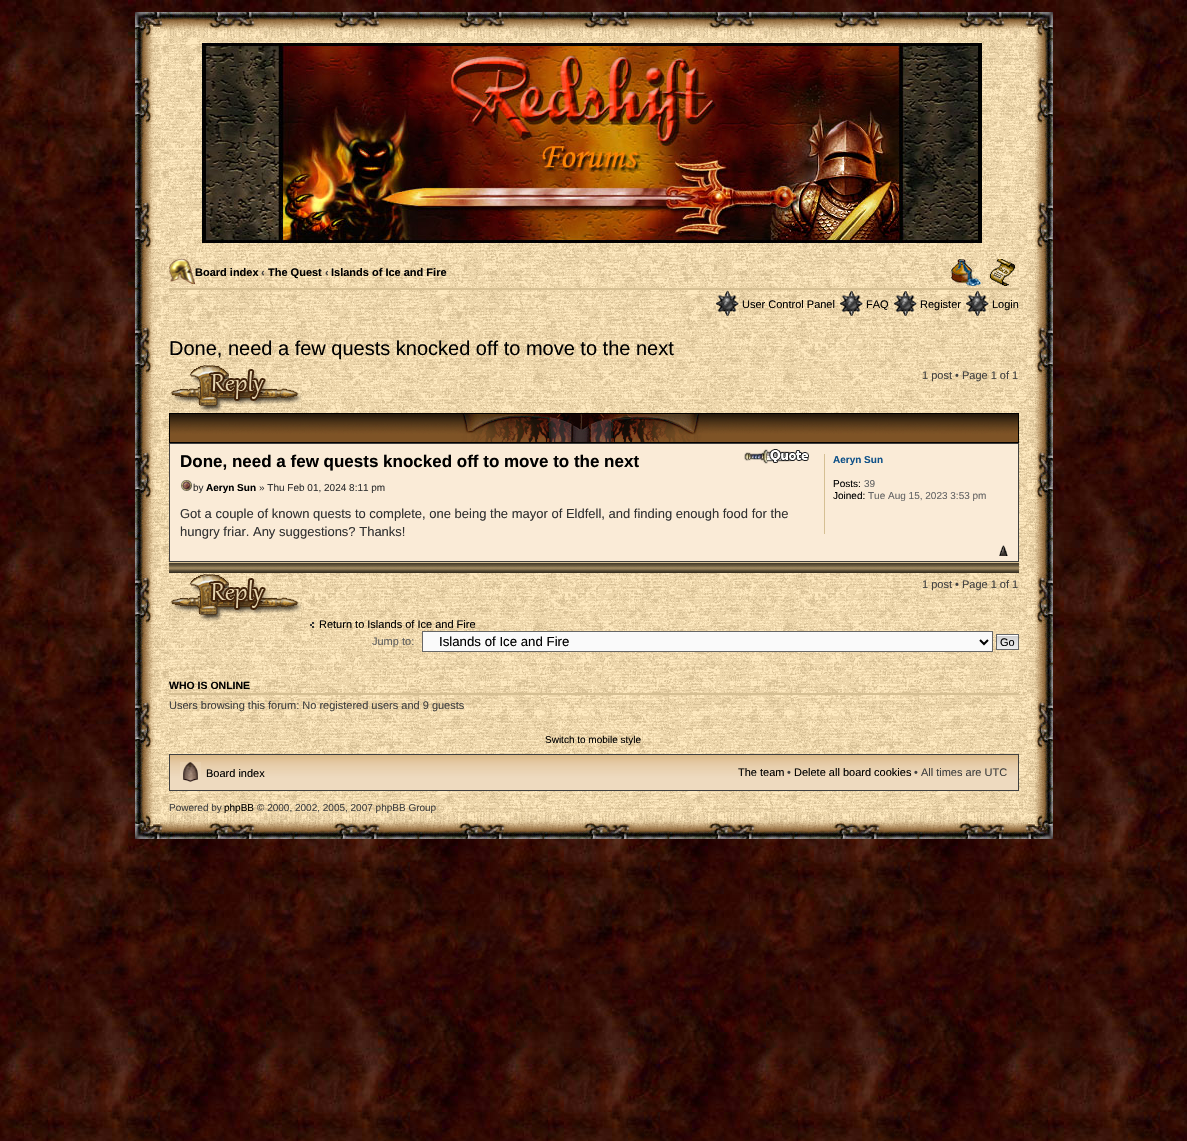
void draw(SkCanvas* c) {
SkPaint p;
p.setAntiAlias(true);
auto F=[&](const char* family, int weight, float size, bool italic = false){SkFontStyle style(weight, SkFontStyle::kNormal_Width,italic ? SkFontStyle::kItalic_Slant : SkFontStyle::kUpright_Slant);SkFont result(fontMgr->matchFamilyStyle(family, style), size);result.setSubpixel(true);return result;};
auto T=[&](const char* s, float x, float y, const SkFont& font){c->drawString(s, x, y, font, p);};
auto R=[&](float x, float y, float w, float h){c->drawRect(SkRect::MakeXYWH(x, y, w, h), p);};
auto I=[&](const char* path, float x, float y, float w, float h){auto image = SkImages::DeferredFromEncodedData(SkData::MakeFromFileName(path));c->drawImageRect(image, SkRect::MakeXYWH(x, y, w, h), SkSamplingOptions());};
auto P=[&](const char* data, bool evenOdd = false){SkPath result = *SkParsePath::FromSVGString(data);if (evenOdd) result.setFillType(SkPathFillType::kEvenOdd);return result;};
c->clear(0xffffffff);
I("1.png",0,851,1187,290);
I("2.png",0,0,1187,851);
I("3.png",135,12,34,26);
I("4.png",169,12,850,26);
I("5.png",1019,12,34,26);
I("6.png",135,38,34,775);
I("7.png",169,38,850,775);
I("8.png",202,43,780,200);
p.setColor(0xffd5bf93);
R(169,288,850,2);
I("9.png",169,259,26,25);
auto f1 = F("Liberation Sans",700,11);
p.setColor(0xff000000);
T("Board index",195,276,f1);
p.setColor(0xff404040);
T("‹",261,276,f1);
p.setColor(0xff000000);
T("The Quest",268,276,f1);
p.setColor(0xff404040);
T("‹",325,276,f1);
p.setColor(0xff000000);
T("Islands of Ice and Fire",331,276,f1);
I("10.png",951,259,30,27);
I("11.png",986,259,33,28);
I("12.png",716,291,23,25);
auto f2 = F("Liberation Sans",400,11);
T("User Control Panel",742,308,f2);
I("12.png",840,291,23,25);
T("FAQ",866,308,f2);
I("12.png",894,291,23,25);
T("Register",920,308,f2);
I("12.png",966,291,23,25);
T("Login",992,308,f2);
auto f3 = F("Liberation Sans",400,20);
T("Done, need a few quests knocked off to move to the next",169,355,f3);
I("13.png",169,364,133,49);
p.setColor(0xff404040);
T("1 post • Page 1 of 1",922,379,f2);
I("14.png",170,414,848,28);
p.setStroke(true);
p.setStrokeWidth(1);
p.setColor(0xff000000);
c->drawRect(SkRect::MakeXYWH(169.5,413.5,849,29),p);
p.setStroke(false);
p.setColor(0xfffaebd7);
c->drawRect(SkRect::MakeXYWH(169.5,443.5,849,118),p);
p.setStroke(true);
p.setColor(0xff404040);
c->drawRect(SkRect::MakeXYWH(169.5,443.5,849,118),p);
auto f4 = F("Liberation Sans",700,17);
p.setStroke(false);
p.setColor(0xff000000);
T("Done, need a few quests knocked off to move to the next",180,467,f4);
I("15.png",744,449,65,15);
I("16.png",770,450,39,12);
I("17.png",181,480,11,11);
auto f5 = F("Liberation Sans",400,10);
p.setColor(0xff333333);
T("by",193,491,f5);
auto f6 = F("Liberation Sans",700,10);
p.setColor(0xff000000);
T("Aeryn Sun",206,491,f6);
p.setColor(0xff333333);
T("» Thu Feb 01, 2024 8:11 pm",259,491,f5);
auto f7 = F("Liberation Sans",400,13);
T("Got a couple of known quests to complete, one being the mayor of Eldfell, and finding enough food for the",180,518,f7);
T("hungry friar. Any suggestions? Thanks!",180,536,f7);
p.setColor(0xffd5bf93);
R(824,454,1,80);
p.setColor(0xff105289);
T("Aeryn Sun",833,463,f6);
p.setColor(0xff000000);
T("Posts:",833,487,f5);
p.setColor(0xff666666);
T("39",864,487,f5);
p.setColor(0xff000000);
T("Joined:",833,499,f5);
p.setColor(0xff666666);
T("Tue Aug 15, 2023 3:53 pm",868,499,f5);
I("18.png",999,545,9,11);
I("19.png",169,563,850,10);
p.setColor(0xffd5bf93);
R(169,562,850,1);
I("13.png",169,573,133,49);
p.setColor(0xff404040);
T("1 post • Page 1 of 1",922,588,f2);
I("20.png",310,622,4,6);
p.setColor(0xff000000);
T("Return to Islands of Ice and Fire",319,628,f2);
p.setColor(0xff5f5f5f);
T("Jump to:",372,645,f2);
p.setColor(0xfffafafa);
c->drawRect(SkRect::MakeXYWH(422.5,631.5,570,20),p);
p.setStroke(true);
p.setColor(0xff666666);
c->drawRect(SkRect::MakeXYWH(422.5,631.5,570,20),p);
p.setStrokeWidth(2);
p.setColor(0xff000000);
c->drawPath(P("M980 640l4 4l4-4"),p);
auto f8 = F("Liberation Sans",400,13.25);
p.setStroke(false);
T("Islands of Ice and Fire",439,646,f8);
I("21.png",997,635,21,14);
p.setStroke(true);
p.setStrokeWidth(1);
p.setColor(0xff666666);
c->drawRect(SkRect::MakeXYWH(996.5,634.5,22,15),p);
p.setStroke(false);
p.setColor(0xff000000);
T("Go",1000,646,f2);
p.setColor(0xffd5bf93);
R(169,693,850,2);
auto f9 = F("Liberation Sans",700,10.5);
p.setColor(0xff000000);
T("WHO IS ONLINE",169,689,f9);
p.setColor(0xff404040);
T("Users browsing this forum: No registered users and 9 guests",169,709,f2);
p.setColor(0xff000000);
T("Switch to mobile style",545,743,f5);
I("22.png",170,755,848,35);
p.setStroke(true);
p.setColor(0xff404040);
c->drawRect(SkRect::MakeXYWH(169.5,754.5,849,36),p);
I("23.png",180,762,21,20);
p.setStroke(false);
p.setColor(0xff000000);
T("Board index",206,777,f2);
T("The team",738,776,f2);
p.setColor(0xff404040);
T("•",787,776,f2);
p.setColor(0xff000000);
T("Delete all board cookies",794,776,f2);
p.setColor(0xff404040);
T("• All times are UTC",914,776,f2);
I("26.png",169,813,850,26);
T("Powered by",169,811,f5);
p.setColor(0xff000000);
T("phpBB",224,811,f5);
p.setColor(0xff404040);
T("© 2000, 2002, 2005, 2007 phpBB Group",257,811,f5);
I("24.png",1019,38,34,775);
I("25.png",135,813,34,26);
I("27.png",1019,813,34,26);
}
